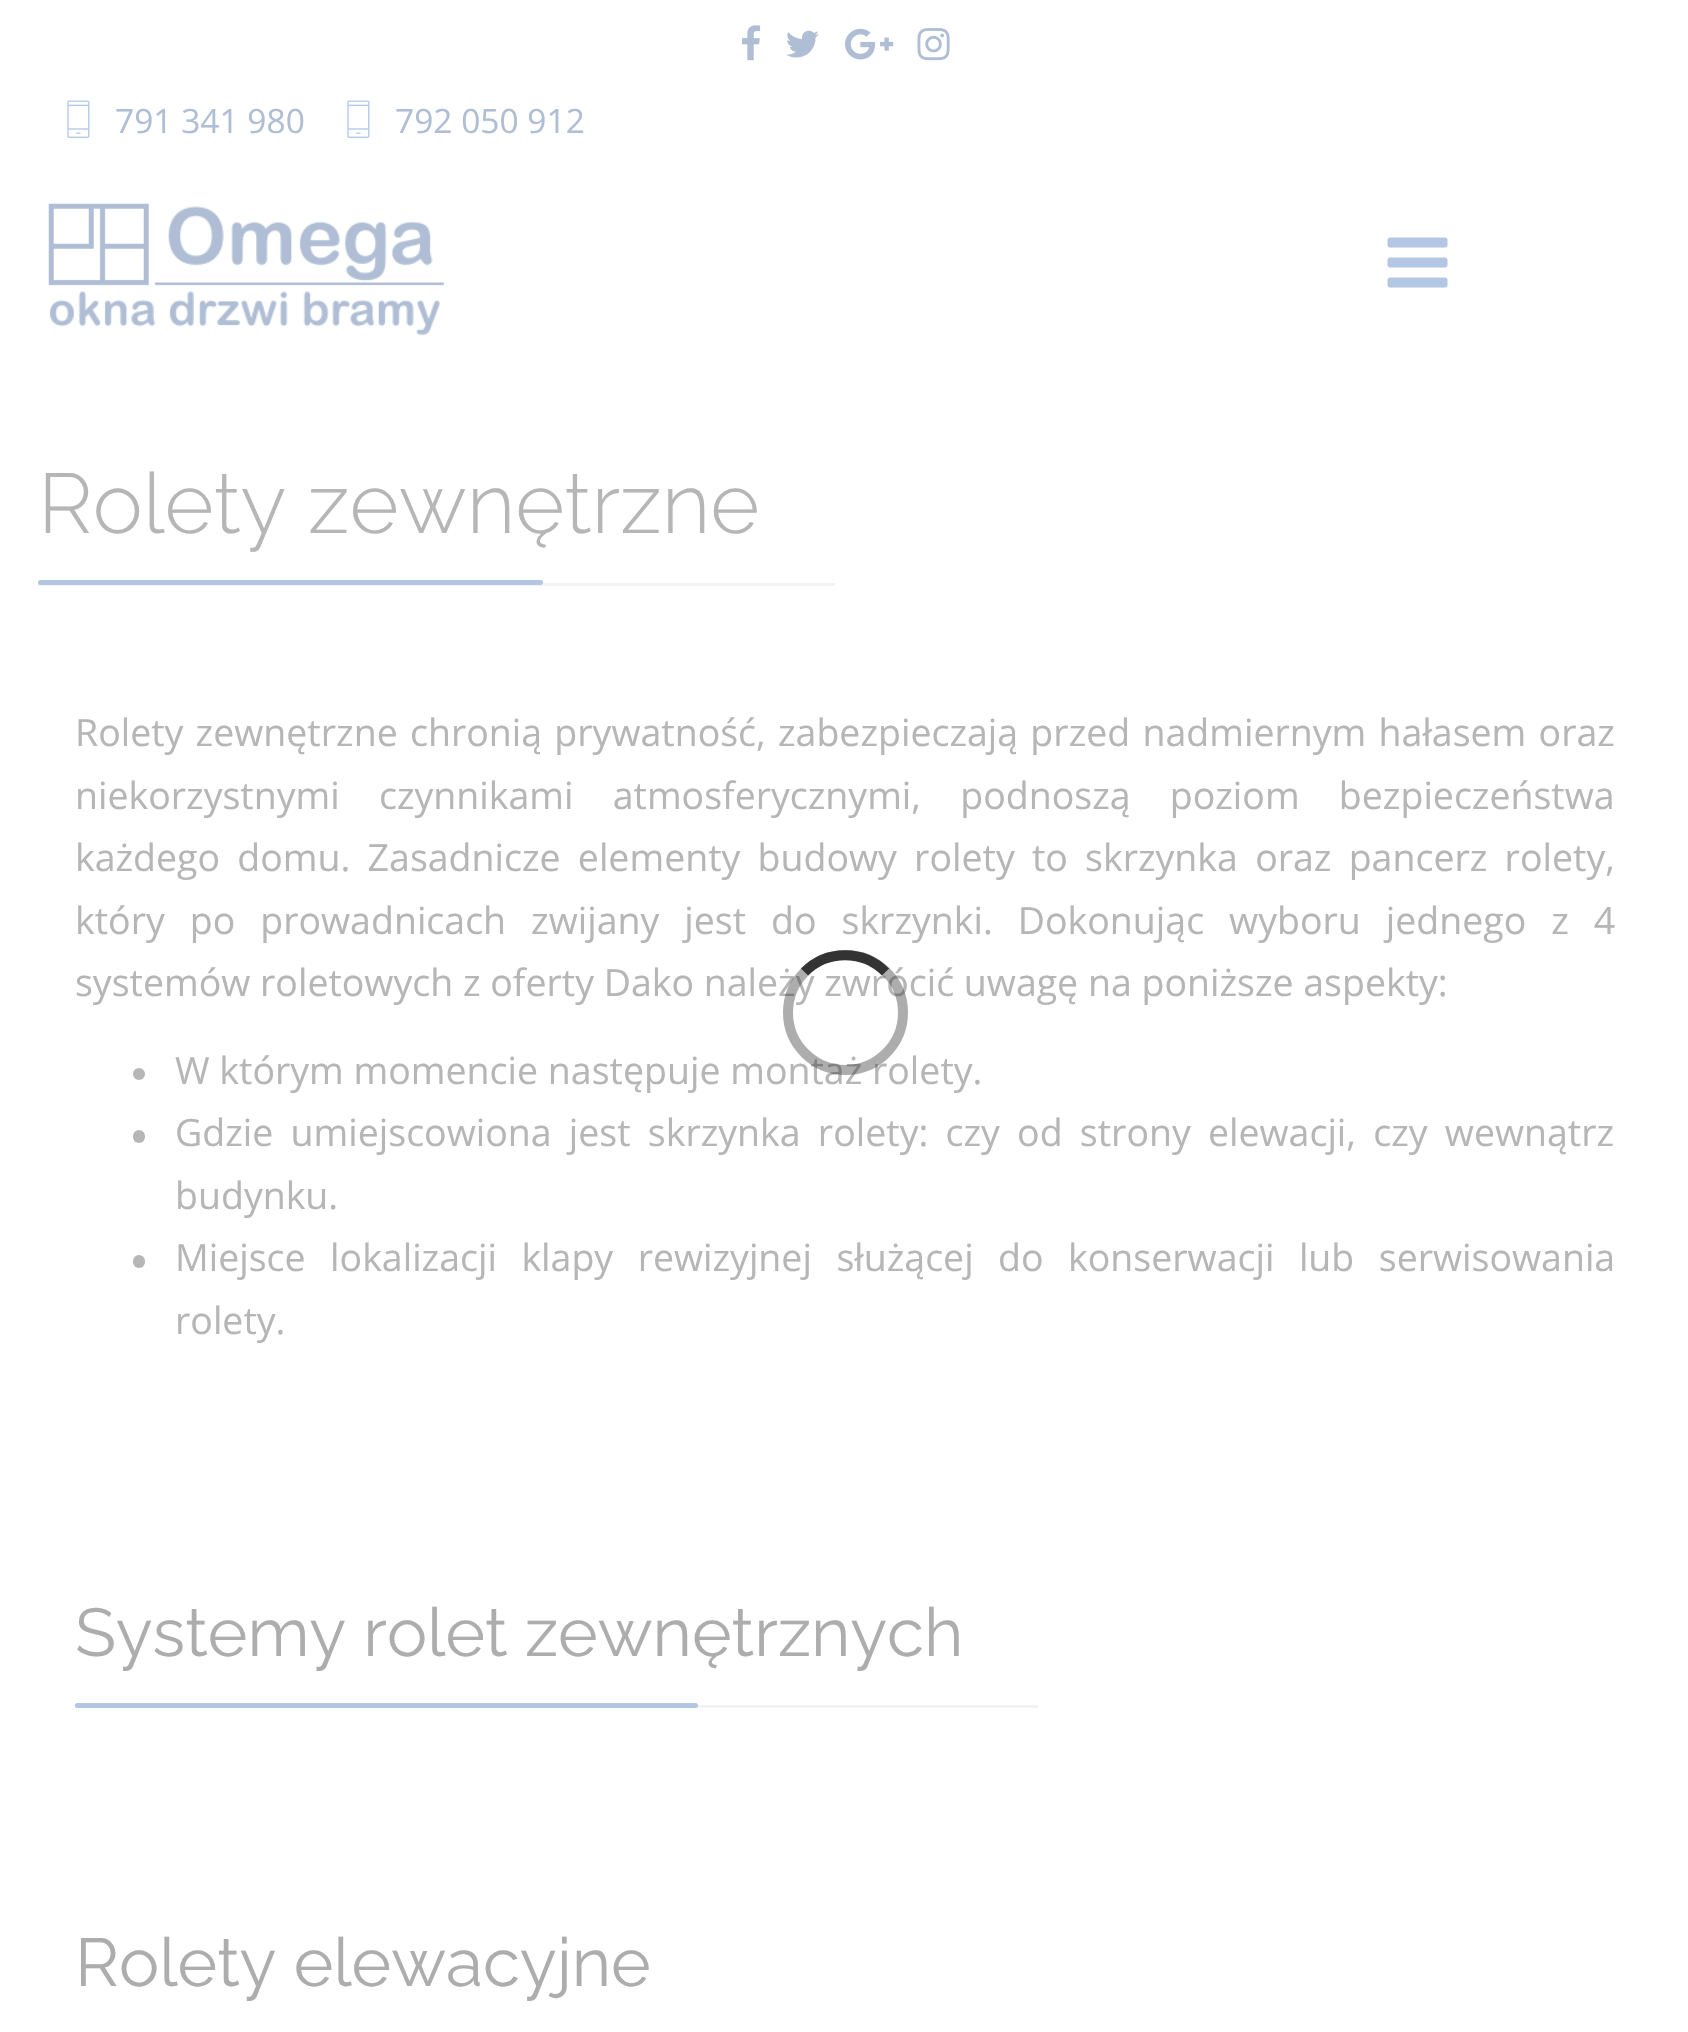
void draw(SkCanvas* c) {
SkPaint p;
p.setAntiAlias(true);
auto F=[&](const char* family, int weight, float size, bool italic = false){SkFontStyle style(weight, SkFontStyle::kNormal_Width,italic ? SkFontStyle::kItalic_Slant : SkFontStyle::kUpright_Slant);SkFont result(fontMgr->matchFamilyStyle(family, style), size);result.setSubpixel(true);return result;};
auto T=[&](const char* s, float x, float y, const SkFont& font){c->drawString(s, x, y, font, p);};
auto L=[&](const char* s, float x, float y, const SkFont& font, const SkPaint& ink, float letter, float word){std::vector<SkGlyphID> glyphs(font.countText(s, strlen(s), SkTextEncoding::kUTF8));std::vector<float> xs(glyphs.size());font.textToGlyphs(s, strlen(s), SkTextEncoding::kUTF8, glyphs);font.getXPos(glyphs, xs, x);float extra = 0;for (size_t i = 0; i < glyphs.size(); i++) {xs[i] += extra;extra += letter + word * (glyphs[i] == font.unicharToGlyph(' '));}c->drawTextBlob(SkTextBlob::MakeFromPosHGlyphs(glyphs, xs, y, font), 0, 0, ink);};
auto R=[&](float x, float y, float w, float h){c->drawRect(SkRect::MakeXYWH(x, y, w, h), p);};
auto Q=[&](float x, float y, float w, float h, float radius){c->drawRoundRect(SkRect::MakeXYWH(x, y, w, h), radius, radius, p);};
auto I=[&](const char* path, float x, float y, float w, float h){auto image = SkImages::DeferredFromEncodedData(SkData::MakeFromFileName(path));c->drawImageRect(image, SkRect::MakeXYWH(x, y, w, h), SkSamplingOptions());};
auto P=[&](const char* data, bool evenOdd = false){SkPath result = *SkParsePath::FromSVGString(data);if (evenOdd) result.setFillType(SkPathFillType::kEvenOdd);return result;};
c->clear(0xffffffff);
I("1.png",742,25,19,36);
I("2.png",786,30,33,28);
I("3.png",845,28,49,32);
I("4.png",917,28,33,33);
I("5.png",67,100,23,38);
auto f1 = F("Open Sans",400,33.5);
p.setColor(0xffafbed4);
T("791 341 980",115,133,f1);
I("5.png",347,100,23,38);
T("792 050 912",395,133,f1);
I("6.png",48,203,396,133);
I("7.png",1387,237,61,51);
p.setColor(0xfff3f3f3);
R(38,583,797,3);
auto f2 = F("Raleway",300,84.4);
p.setColor(0xffb6b6b6);
T("Rolety zewnętrzne",38,533,f2);
p.setColor(0xffb3c6e3);
Q(38,580,505,5,2.5);
auto f3 = F("Open Sans",400,37.5);
p.setColor(0xffb6b6b6);
L("Rolety zewnętrzne chronią prywatność, zabezpieczają przed nadmiernym hałasem oraz",75,746,f3,p,0,2.5);
L("niekorzystnymi czynnikami atmosferycznymi, podnoszą poziom bezpieczeństwa",75,809,f3,p,0,29.5);
L("każdego domu. Zasadnicze elementy budowy rolety to skrzynka oraz pancerz rolety,",75,871,f3,p,0,7.5);
L("który po prowadnicach zwijany jest do skrzynki. Dokonując wyboru jednego z 4",75,934,f3,p,0,15.25);
T("systemów roletowych z oferty Dako należy zwrócić uwagę na poniższe aspekty:",75,996,f3);
c->drawCircle(139,1074,6,p);
T("W którym momencie następuje montaż rolety.",175,1084,f3);
Q(133,1130,12,13,6);
L("Gdzie umiejscowiona jest skrzynka rolety: czy od strony elewacji, czy wewnątrz",175,1146,f3,p,0,7.5);
T("budynku.",175,1209,f3);
Q(133,1255,12,13,6);
L("Miejsce lokalizacji klapy rewizyjnej służącej do konserwacji lub serwisowania",175,1271,f3,p,0,14.75);
T("rolety.",175,1334,f3);
p.setColor(0xfff3f3f3);
R(75,1705,963,3);
auto f4 = F("Raleway",400,67.5);
p.setColor(0xffadadad);
T("Systemy rolet zewnętrznych",75,1656,f4);
p.setColor(0xffb3c6e3);
Q(75,1703,623,5,2.5);
p.setColor(0xffadadad);
T("Rolety elewacyjne",75,1986,f4);
p.setStroke(true);
p.setStrokeWidth(10);
p.setColor(0x66333333);
c->drawCircle(845.5,1012.5,57.5,p);
p.setColor(0xff333333);
c->drawPath(P("M804.5 972c22-22.5 59-22.5 81 0"),p);
}
